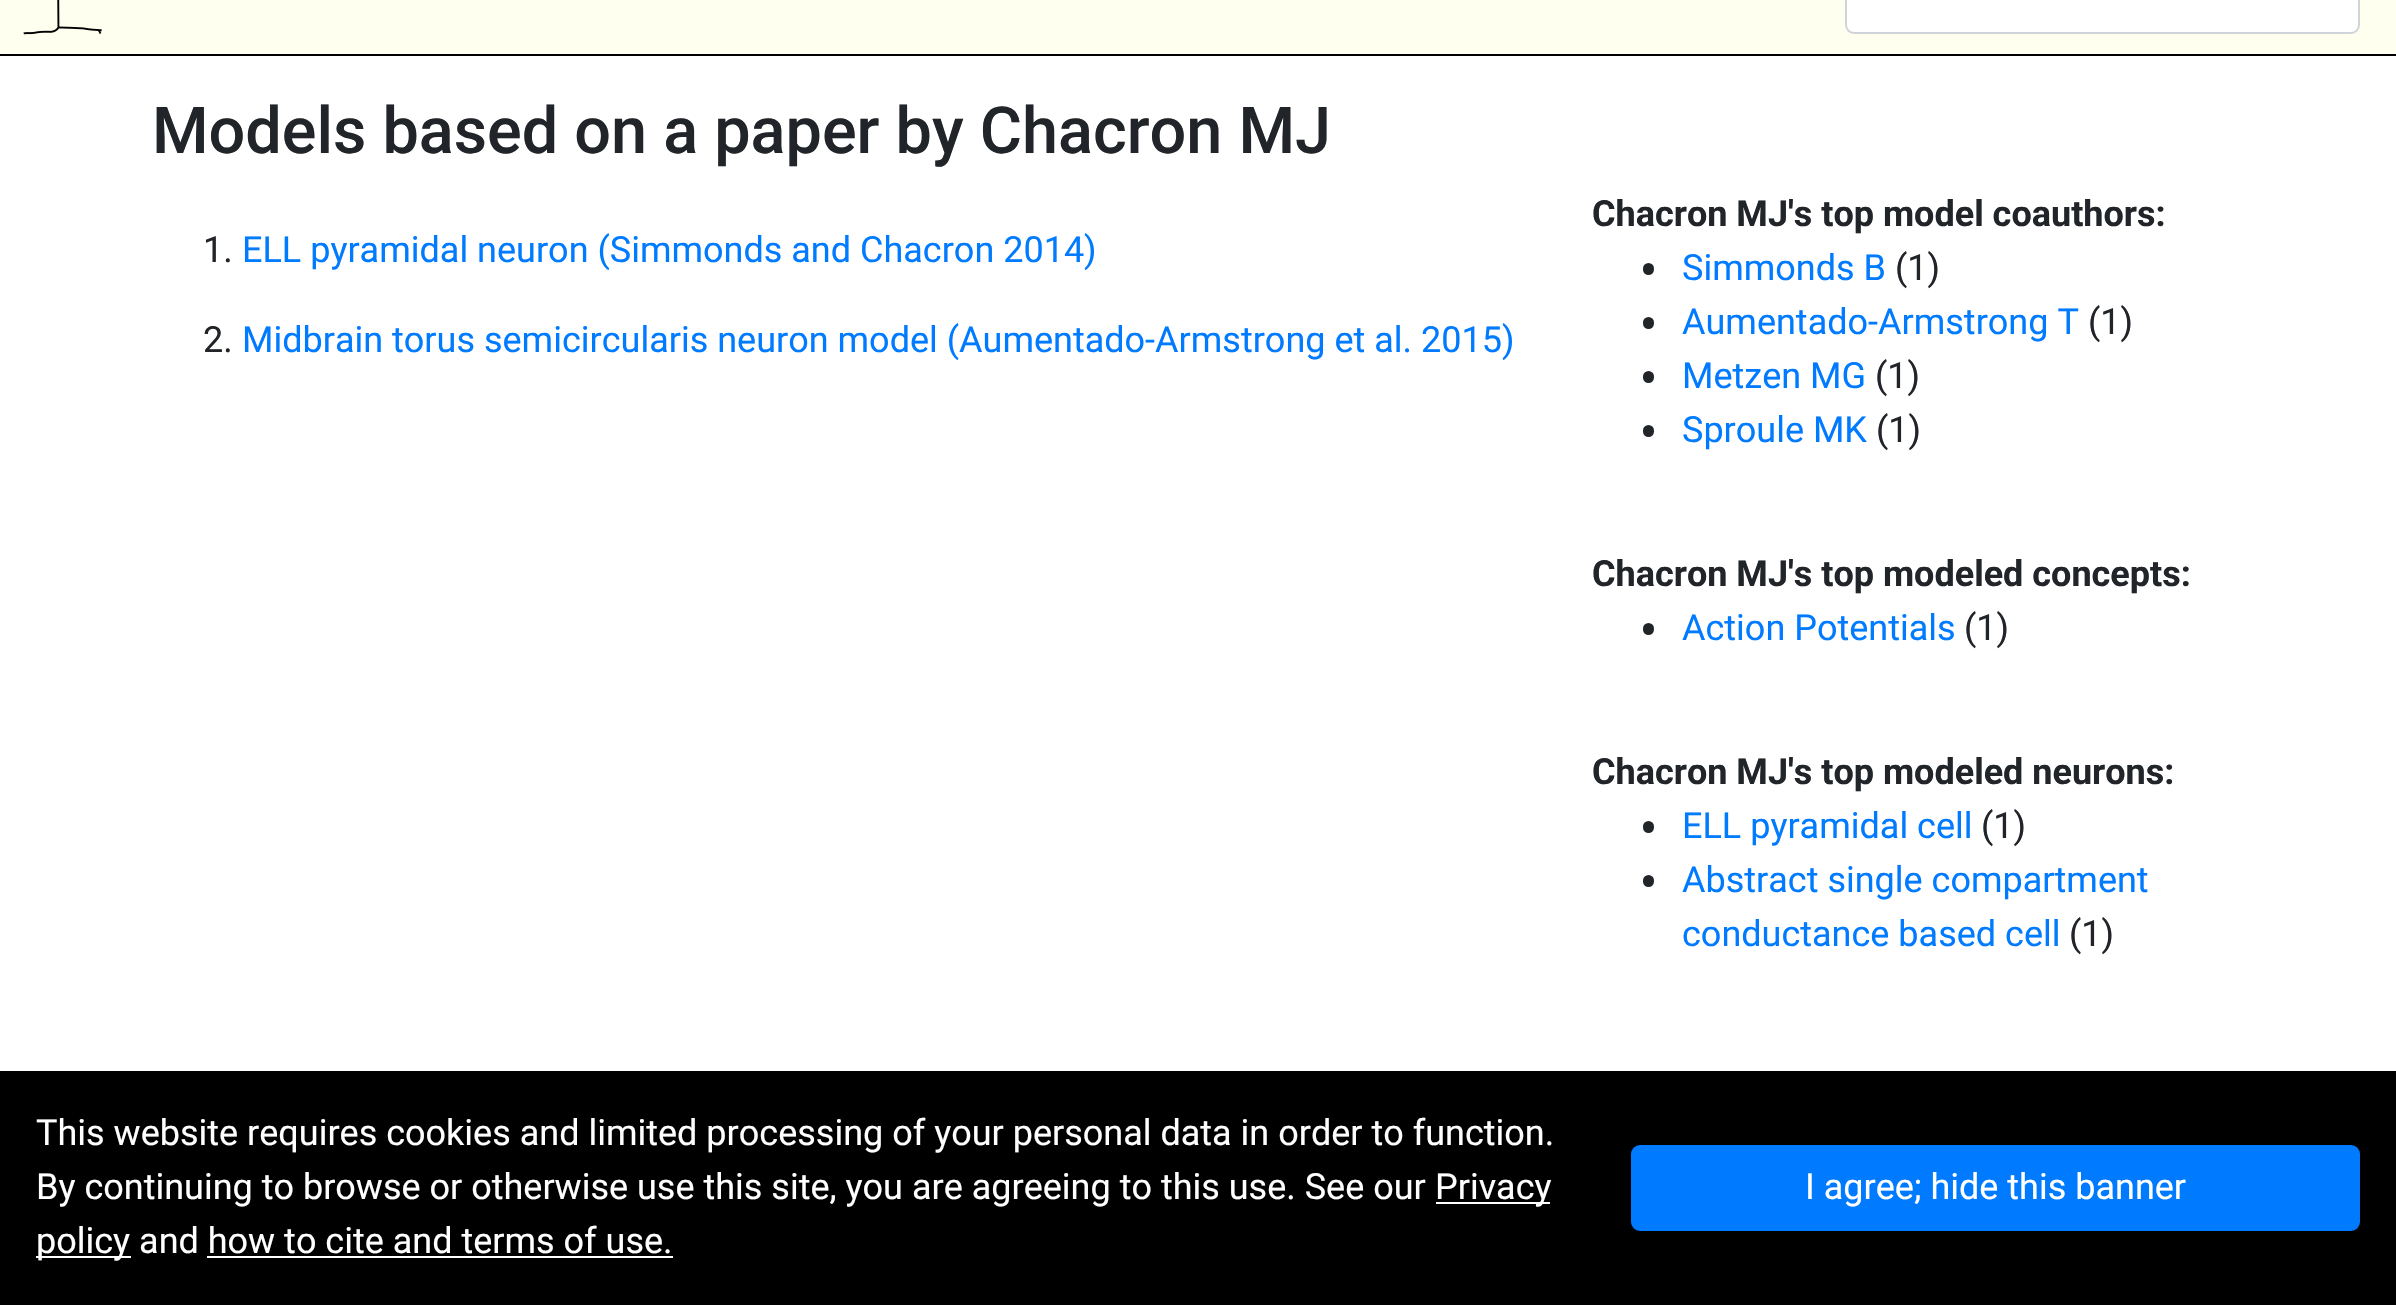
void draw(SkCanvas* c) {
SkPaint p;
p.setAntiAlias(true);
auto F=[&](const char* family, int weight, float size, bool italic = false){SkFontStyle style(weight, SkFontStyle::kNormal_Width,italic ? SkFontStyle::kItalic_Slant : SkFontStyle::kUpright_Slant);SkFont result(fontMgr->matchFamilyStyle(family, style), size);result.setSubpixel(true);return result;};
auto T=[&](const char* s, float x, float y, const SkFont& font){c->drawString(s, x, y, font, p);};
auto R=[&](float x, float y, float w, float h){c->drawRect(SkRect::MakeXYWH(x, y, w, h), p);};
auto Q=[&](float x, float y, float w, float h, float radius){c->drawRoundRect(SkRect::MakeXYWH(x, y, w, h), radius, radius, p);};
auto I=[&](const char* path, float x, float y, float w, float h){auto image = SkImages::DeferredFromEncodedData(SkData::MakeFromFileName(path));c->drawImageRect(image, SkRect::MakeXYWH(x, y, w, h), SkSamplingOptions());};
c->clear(0xffffffff);
p.setColor(0xffffffef);
R(0,0,2396,54);
p.setColor(0xff000000);
R(0,54,2396,2);
I("1.png",23,0,79,35);
p.setColor(0xffffffff);
Q(1847,-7,511,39,7);
p.setStroke(true);
p.setStrokeWidth(2);
p.setColor(0xffced4da);
c->drawRoundRect(SkRect::MakeXYWH(1846,-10,513,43),8,8,p);
auto f1 = F("Roboto",500,64.75);
p.setStroke(false);
p.setColor(0xff212529);
T("Models based on a paper by Chacron MJ",152,153,f1);
auto f2 = F("Roboto",400,36);
T("1.",203,262,f2);
p.setColor(0xff007bff);
T("ELL pyramidal neuron (Simmonds and Chacron 2014)",242,262,f2);
p.setColor(0xff212529);
T("2.",203,352,f2);
p.setColor(0xff007bff);
T("Midbrain torus semicircularis neuron model (Aumentado-Armstrong et al. 2015)",242,352,f2);
auto f3 = F("Roboto",700,36);
p.setColor(0xff212529);
T("Chacron MJ's top model coauthors:",1592,226,f3);
Q(1643,263,11,12,5.5);
p.setColor(0xff007bff);
T("Simmonds B",1682,280,f2);
p.setColor(0xff212529);
T("(1)",1895,280,f2);
Q(1643,317,11,12,5.5);
p.setColor(0xff007bff);
T("Aumentado-Armstrong T",1682,334,f2);
p.setColor(0xff212529);
T("(1)",2088,334,f2);
Q(1643,371,11,12,5.5);
p.setColor(0xff007bff);
T("Metzen MG",1682,388,f2);
p.setColor(0xff212529);
T("(1)",1875,388,f2);
Q(1643,425,11,12,5.5);
p.setColor(0xff007bff);
T("Sproule MK",1682,442,f2);
p.setColor(0xff212529);
T("(1)",1876,442,f2);
T("Chacron MJ's top modeled concepts:",1592,586,f3);
Q(1643,623,11,12,5.5);
p.setColor(0xff007bff);
T("Action Potentials",1682,640,f2);
p.setColor(0xff212529);
T("(1)",1964,640,f2);
T("Chacron MJ's top modeled neurons:",1592,784,f3);
Q(1643,821,11,12,5.5);
p.setColor(0xff007bff);
T("ELL pyramidal cell",1682,838,f2);
p.setColor(0xff212529);
T("(1)",1981,838,f2);
Q(1643,875,11,12,5.5);
p.setColor(0xff007bff);
T("Abstract single compartment",1682,892,f2);
T("conductance based cell",1682,946,f2);
p.setColor(0xff212529);
T("(1)",2069,946,f2);
p.setColor(0xff000000);
R(0,1071,2396,234);
p.setColor(0xffffffff);
T("This website requires cookies and limited processing of your personal data in order to function.",36,1145,f2);
T("By continuing to browse or otherwise use this site, you are agreeing to this use. See our",36,1199,f2);
R(1436,1202,114,2);
T("Privacy",1435,1199,f2);
R(36,1256,95,2);
T("policy and how to cite and terms of use.",36,1253,f2);
R(207,1256,466,2);
p.setColor(0xff007bff);
c->drawRoundRect(SkRect::MakeXYWH(1632,1146,727,84),8,8,p);
p.setStroke(true);
c->drawRoundRect(SkRect::MakeXYWH(1632,1146,727,84),8,8,p);
p.setStroke(false);
p.setColor(0xffffffff);
T("I agree; hide this banner",1805,1199,f2);
}
